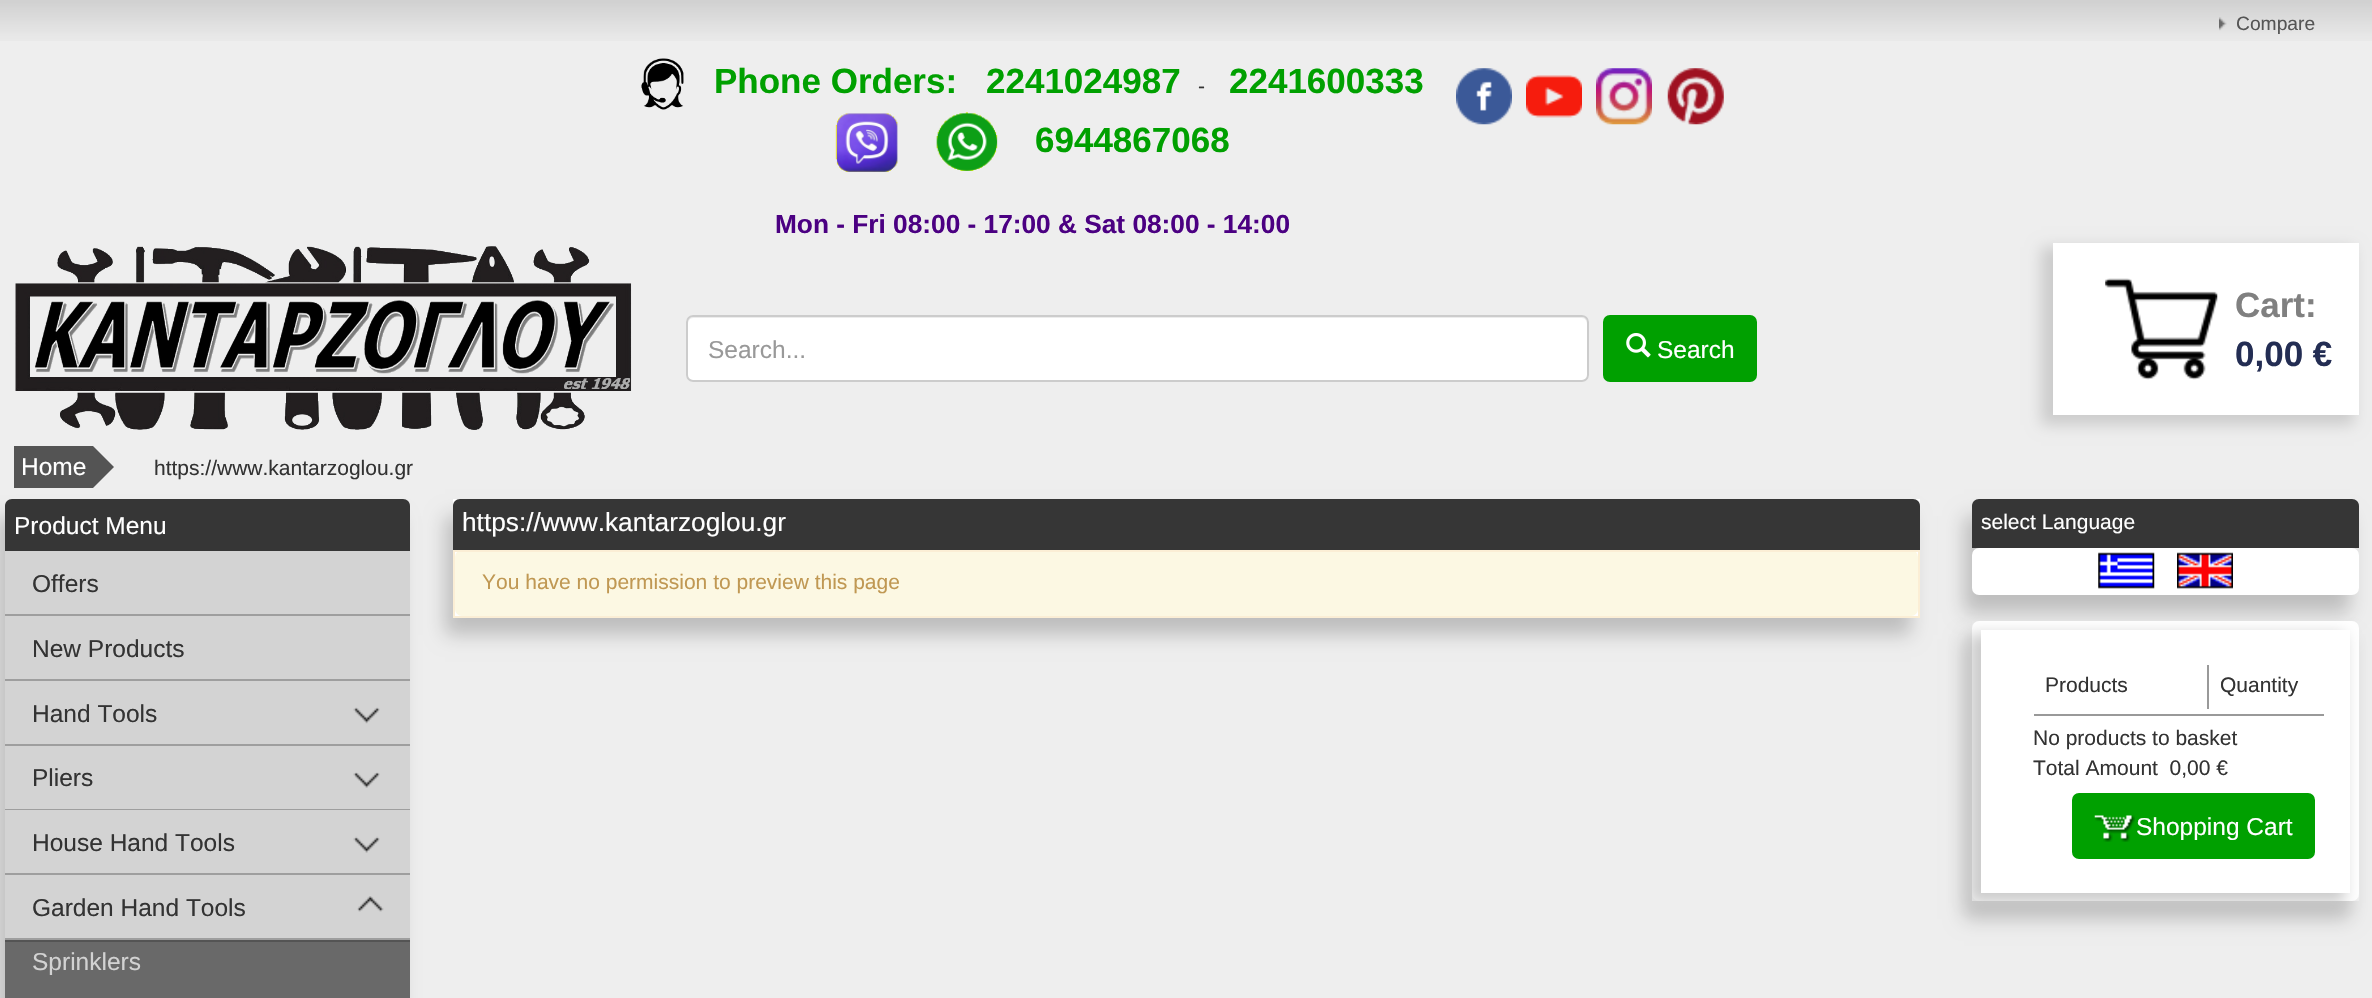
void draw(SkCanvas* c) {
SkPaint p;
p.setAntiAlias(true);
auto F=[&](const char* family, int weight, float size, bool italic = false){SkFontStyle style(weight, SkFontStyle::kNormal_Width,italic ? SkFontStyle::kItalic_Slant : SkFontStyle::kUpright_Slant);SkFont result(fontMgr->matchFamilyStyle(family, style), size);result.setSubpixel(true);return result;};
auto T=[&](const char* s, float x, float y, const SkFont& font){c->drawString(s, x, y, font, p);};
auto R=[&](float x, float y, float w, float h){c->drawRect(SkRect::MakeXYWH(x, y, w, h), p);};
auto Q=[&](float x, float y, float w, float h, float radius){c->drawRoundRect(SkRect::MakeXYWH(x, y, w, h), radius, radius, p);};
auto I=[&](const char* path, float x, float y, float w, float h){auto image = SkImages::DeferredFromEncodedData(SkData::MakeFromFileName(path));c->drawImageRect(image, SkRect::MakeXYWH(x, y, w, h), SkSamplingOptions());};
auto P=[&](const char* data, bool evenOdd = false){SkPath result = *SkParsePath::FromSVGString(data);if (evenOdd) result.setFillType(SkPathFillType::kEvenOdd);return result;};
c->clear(0xffeeeeee);
I("1.png",0,0,2372,41);
I("2.png",2219,17,8,14);
auto f1 = F("Liberation Sans",400,19.25);
p.setColor(0xff555555);
T("Compare",2236,30,f1);
I("3.png",641,58,43,52);
auto f2 = F("Liberation Sans",700,35);
p.setColor(0xff00a000);
T("Phone Orders:",714,93,f2);
T("2241024987",986,93,f2);
auto f3 = F("Liberation Sans",400,21);
p.setColor(0xff333333);
T("-",1198,93,f3);
p.setColor(0xff00a000);
T("2241600333",1229,93,f2);
I("4.png",835,113,63,59);
I("5.png",936,112,62,59);
T("6944867068",1035,152,f2);
auto f4 = F("Liberation Sans",700,26.25);
p.setColor(0xff4b0082);
T("Mon - Fri 08:00 - 17:00 & Sat 08:00 - 14:00",775,233,f4);
I("6.png",1456,68,56,57);
I("7.png",1526,75,56,43);
I("8.png",1596,68,56,57);
I("9.png",1667,68,57,57);
I("10.png",15,246,617,184);
p.setColor(0xffffffff);
Q(686,315,903,67,7);
p.setColor(0xffececec);
c->drawPath(P("M693 318h889c3 0 5 3 5 6v-2c0-3-2-5-5-5h-889c-3 0-5 2-5 5v2c0-3 2-6 5-6z"),p);
p.setStroke(true);
p.setStrokeWidth(2);
p.setColor(0xffcccccc);
c->drawRoundRect(SkRect::MakeXYWH(687,316,901,65),6,6,p);
auto f5 = F("Liberation Sans",400,24.5);
p.setStroke(false);
p.setColor(0xff999999);
T("Search...",708,358,f5);
p.setColor(0xff00a000);
c->drawRoundRect(SkRect::MakeXYWH(1604,316,152,65),6,6,p);
p.setStroke(true);
c->drawRoundRect(SkRect::MakeXYWH(1604,316,152,65),6,6,p);
I("11.png",1626,333,25,25);
p.setStroke(false);
p.setColor(0xffffffff);
T("Search",1657,358,f5);
p.setColor(0xffcccccc);
p.setMaskFilter(SkMaskFilter::MakeBlur(kNormal_SkBlurStyle, 7));
c->drawRect(SkRect::MakeXYWH(2041,247,313,178),p);
p.setMaskFilter(nullptr);
p.setColor(0xffffffff);
R(2053,243,306,172);
I("12.png",2105,278,113,102);
p.setColor(0xff808080);
T("Cart:",2235,317,f2);
p.setColor(0xff232d53);
T("0,00 €",2235,366,f2);
p.setColor(0xff545454);
R(14,446,79,42);
p.setColor(0xffffffff);
T("Home",21,475,f5);
p.setColor(0xff545454);
c->drawPath(P("M93 488v-42l21 21z"),p);
p.setColor(0xff333333);
T("https://www.kantarzoglou.gr",154,475,f3);
p.setColor(0x33000000);
p.setMaskFilter(SkMaskFilter::MakeBlur(kNormal_SkBlurStyle, 9));
c->drawRoundRect(SkRect::MakeXYWH(-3,516,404,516),7,7,p);
p.setMaskFilter(nullptr);
p.setColor(0xff363636);
c->drawPath(P("M12 499h391c4 0 7 3 7 7v45h-405v-45c0-4 3-7 7-7z"),p);
p.setColor(0xffffffff);
T("Product Menu",14,534,f5);
p.setColor(0xffd3d3d3);
R(5,551,405,63);
p.setColor(0xff9e9e9e);
R(5,614,405,2);
p.setColor(0xff333333);
T("Offers",32,592,f5);
p.setColor(0xffd3d3d3);
R(5,616,405,63);
p.setColor(0xff9e9e9e);
R(5,679,405,2);
p.setColor(0xff333333);
T("New Products",32,657,f5);
p.setColor(0xffd3d3d3);
R(5,681,405,63);
p.setColor(0xff9e9e9e);
R(5,744,405,2);
p.setColor(0xff333333);
T("Hand Tools",32,722,f5);
I("13.png",353,707,27,17);
p.setColor(0xffd3d3d3);
R(5,746,405,63);
p.setColor(0xff9e9e9e);
R(5,809,405,1);
p.setColor(0xff333333);
T("Pliers",32,786,f5);
I("14.png",353,772,27,16);
p.setColor(0xffd3d3d3);
R(5,810,405,63);
p.setColor(0xff9e9e9e);
R(5,873,405,2);
p.setColor(0xff333333);
T("House Hand Tools",32,851,f5);
I("15.png",353,836,27,17);
p.setColor(0xffd3d3d3);
R(5,875,405,63);
p.setColor(0xff9e9e9e);
R(5,938,405,2);
p.setColor(0xff333333);
T("Garden Hand Tools",32,916,f5);
I("16.png",357,896,27,16);
p.setColor(0xff545454);
R(5,940,405,2);
p.setColor(0xff696969);
R(5,942,405,56);
p.setColor(0xffd2d2d2);
T("Sprinklers",32,970,f5);
p.setColor(0x33000000);
p.setMaskFilter(SkMaskFilter::MakeBlur(kNormal_SkBlurStyle, 9));
c->drawRect(SkRect::MakeXYWH(445,516,1466,119),p);
p.setMaskFilter(nullptr);
p.setColor(0xffffffff);
R(453,499,1467,117);
p.setColor(0xff363636);
c->drawPath(P("M460 499h1453c4 0 7 3 7 7v44h-1467v-44c0-4 3-7 7-7z"),p);
auto f6 = F("Liberation Sans",400,26.25);
p.setColor(0xffffffff);
T("https://www.kantarzoglou.gr",462,531,f6);
p.setColor(0xfffcf8e3);
Q(455,550,1463,66,7);
p.setColor(0xfffbeed5);
R(453,550,1467,2);
R(1918,550,2,68);
R(453,616,1467,2);
R(453,550,2,68);
p.setColor(0xffc09853);
T("Υou have no permission to preview this page",482,589,f3);
p.setColor(0x33000000);
p.setMaskFilter(SkMaskFilter::MakeBlur(kNormal_SkBlurStyle, 9));
c->drawRect(SkRect::MakeXYWH(1964,516,386,97),p);
p.setMaskFilter(nullptr);
p.setColor(0xff363636);
c->drawPath(P("M1979 499h373c4 0 7 3 7 7v42h-387v-42c0-4 3-7 7-7z"),p);
p.setColor(0xffffffff);
T("select Language",1981,529,f3);
Q(1972,548,387,47,7);
I("17.png",2098,552,57,37);
I("18.png",2177,552,56,37);
c->save();
c->clipPath(P("M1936 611h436v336h-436zm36 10h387v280h-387z",true),true);
p.setColor(0x33000000);
p.setMaskFilter(SkMaskFilter::MakeBlur(kNormal_SkBlurStyle, 9));
c->drawRect(SkRect::MakeXYWH(1964,639,386,280),p);
p.setMaskFilter(nullptr);
c->restore();
p.setColor(0xffffffff);
Q(1972,621,387,280,7);
p.setColor(0xffcccccc);
p.setMaskFilter(SkMaskFilter::MakeBlur(kNormal_SkBlurStyle, 7));
c->drawRect(SkRect::MakeXYWH(1969,634,376,269),p);
p.setMaskFilter(nullptr);
p.setColor(0xffffffff);
R(1981,630,369,263);
p.setColor(0xff999999);
R(2034,714,290,2);
R(2207,665,2,44);
p.setColor(0xff333333);
T("Products",2045,692,f3);
T("Quantity",2220,692,f3);
T("Νο products to basket",2033,745,f3);
T("Τotal Amount  0,00 €",2033,775,f3);
p.setColor(0xff00a000);
c->drawRoundRect(SkRect::MakeXYWH(2073,794,241,64),6,6,p);
p.setStroke(true);
c->drawRoundRect(SkRect::MakeXYWH(2073,794,241,64),6,6,p);
I("19.png",2094,815,41,27);
p.setStroke(false);
p.setColor(0xffffffff);
T("Shopping Cart",2136,835,f5);
}
